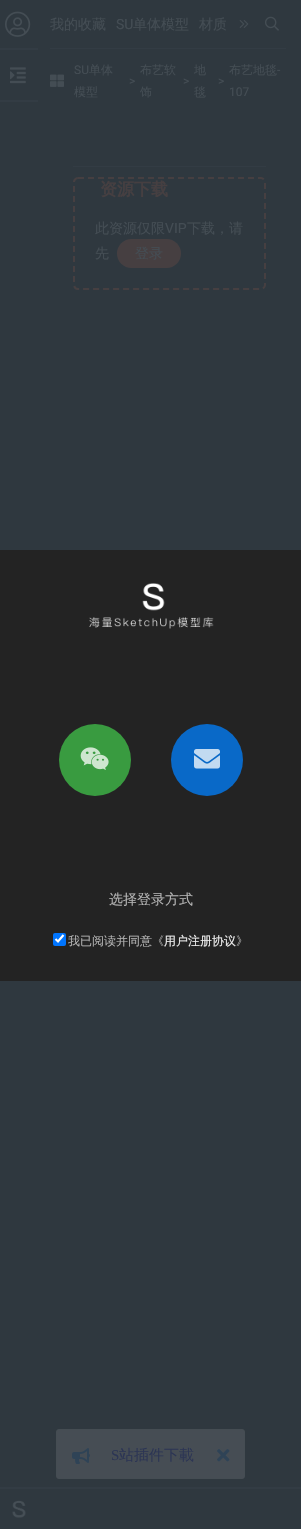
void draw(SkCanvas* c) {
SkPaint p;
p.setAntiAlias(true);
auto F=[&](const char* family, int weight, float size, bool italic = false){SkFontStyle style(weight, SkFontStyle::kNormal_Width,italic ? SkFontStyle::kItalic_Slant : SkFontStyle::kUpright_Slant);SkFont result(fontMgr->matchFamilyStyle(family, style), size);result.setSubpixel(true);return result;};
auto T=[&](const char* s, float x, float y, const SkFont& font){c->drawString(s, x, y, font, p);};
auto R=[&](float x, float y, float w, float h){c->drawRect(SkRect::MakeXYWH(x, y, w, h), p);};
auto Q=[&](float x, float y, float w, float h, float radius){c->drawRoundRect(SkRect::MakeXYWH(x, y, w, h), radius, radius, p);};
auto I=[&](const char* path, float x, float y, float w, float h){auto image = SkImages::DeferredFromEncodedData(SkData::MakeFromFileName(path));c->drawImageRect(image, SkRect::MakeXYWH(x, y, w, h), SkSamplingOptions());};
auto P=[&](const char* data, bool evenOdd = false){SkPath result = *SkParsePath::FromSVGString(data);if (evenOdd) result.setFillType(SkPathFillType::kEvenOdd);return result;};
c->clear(0xff2f383f);
p.setColor(0xff333c44);
R(0,48,38,2);
I("1.png",5,11,26,26);
R(0,100,38,2);
I("2.png",10,67,16,17);
I("3.png",12,1500,14,18);
auto f1 = F("WenQuanYi Zen Hei",500,14);
p.setColor(0xff444d54);
T("我的收藏",50,29,f1);
auto f2 = F("Roboto",400,14);
T("SU",116,29,f2);
T("单体模型",133,29,f1);
c->save();
c->clipRect(SkRect::MakeXYWH(50,10,176,28));
T("材质",199,29,f1);
c->restore();
I("4.png",239,20,10,8);
I("5.png",265,16,14,15);
p.setColor(0xff333c44);
R(50,48,236,1);
auto f3 = F("Roboto",400,12);
p.setColor(0xff444d54);
T("SU",74,74,f3);
auto f4 = F("WenQuanYi Zen Hei",500,12);
T("单体",89,74,f4);
T("模型",74,96,f4);
T("布艺软",140,74,f4);
T("饰",140,96,f4);
T("地",194,74,f4);
T("毯",194,96,f4);
T("布艺地毯",229,74,f4);
T("-",277,74,f3);
I("6.png",50,74,14,13);
T(">",129,85,f3);
T(">",183,85,f3);
T(">",218,85,f3);
T("107",229,96,f3);
p.setColor(0xff333c44);
R(73,166,193,1);
p.setStroke(true);
p.setStrokeWidth(2);
p.setColor(0xff463f41);
p.setPathEffect(SkDashPathEffect::Make({{6,4}}, 0));
c->drawPath(P("M78 178h183c2 0 4 2 4 4v103c0 2-2 4-4 4h-183c-2 0-4-2-4-4v-103c0-2 2-4 4-4z"),p);
p.setPathEffect(nullptr);
auto f5 = F("WenQuanYi Zen Hei",700,17);
p.setStroke(false);
T("资源下载",100,195,f5);
p.setColor(0xff444d54);
T("此资源仅限",95,233,f1);
T("VIP",165,233,f2);
T("下载，请",187,233,f1);
T("先",95,258,f1);
p.setColor(0xff463f41);
Q(117,239,64,29,14.5);
p.setColor(0xff444d54);
T("登录",135,258,f1);
p.setColor(0xff333c44);
R(0,1487,301,2);
p.setColor(0xff232323);
R(0,550,301,431);
I("7.png",89,583,125,46);
p.setColor(0xff399b40);
c->drawCircle(95,760,36,p);
I("8.png",80,747,29,23);
p.setColor(0xff0969c8);
c->drawCircle(207,760,36,p);
I("9.png",194,749,26,20);
p.setColor(0xffb4b4b4);
T("选择登录方式",109,904,f1);
p.setColor(0xff0075ff);
Q(53,933,13,13,2);
p.setStroke(true);
p.setStrokeWidth(2.1);
p.setColor(0xffffffff);
c->drawPath(P("M55.5 939l2.5 2.5l5.5-6.5"),p);
p.setStroke(false);
p.setColor(0xffb4b4b4);
T("我已阅读并同意《",68,945,f4);
p.setColor(0xffefefef);
T("用户注册协议",164,945,f4);
p.setColor(0xffb4b4b4);
T("》",236,945,f4);
p.setColor(0xff464d54);
c->drawRoundRect(SkRect::MakeXYWH(56.5,1429.5,188,49),2.5,2.5,p);
p.setStroke(true);
p.setStrokeWidth(1);
p.setColor(0xff454d53);
c->drawRoundRect(SkRect::MakeXYWH(56.5,1429.5,188,49),2.5,2.5,p);
I("10.png",72,1448,18,16);
auto f6 = F("Liberation Serif",400,15);
p.setStroke(false);
p.setColor(0xff2c3554);
T("S",111,1460,f6);
auto f7 = F("WenQuanYi Zen Hei",500,15);
T("站插件下載",119,1460,f7);
I("11.png",217,1449,13,13);
}
